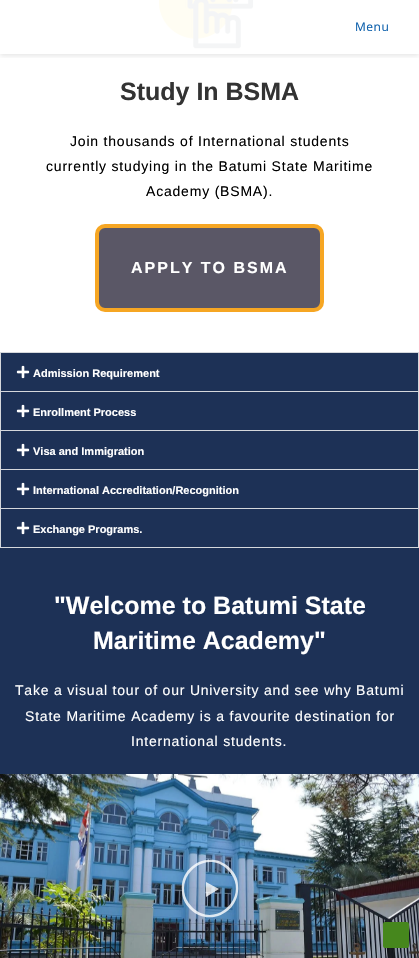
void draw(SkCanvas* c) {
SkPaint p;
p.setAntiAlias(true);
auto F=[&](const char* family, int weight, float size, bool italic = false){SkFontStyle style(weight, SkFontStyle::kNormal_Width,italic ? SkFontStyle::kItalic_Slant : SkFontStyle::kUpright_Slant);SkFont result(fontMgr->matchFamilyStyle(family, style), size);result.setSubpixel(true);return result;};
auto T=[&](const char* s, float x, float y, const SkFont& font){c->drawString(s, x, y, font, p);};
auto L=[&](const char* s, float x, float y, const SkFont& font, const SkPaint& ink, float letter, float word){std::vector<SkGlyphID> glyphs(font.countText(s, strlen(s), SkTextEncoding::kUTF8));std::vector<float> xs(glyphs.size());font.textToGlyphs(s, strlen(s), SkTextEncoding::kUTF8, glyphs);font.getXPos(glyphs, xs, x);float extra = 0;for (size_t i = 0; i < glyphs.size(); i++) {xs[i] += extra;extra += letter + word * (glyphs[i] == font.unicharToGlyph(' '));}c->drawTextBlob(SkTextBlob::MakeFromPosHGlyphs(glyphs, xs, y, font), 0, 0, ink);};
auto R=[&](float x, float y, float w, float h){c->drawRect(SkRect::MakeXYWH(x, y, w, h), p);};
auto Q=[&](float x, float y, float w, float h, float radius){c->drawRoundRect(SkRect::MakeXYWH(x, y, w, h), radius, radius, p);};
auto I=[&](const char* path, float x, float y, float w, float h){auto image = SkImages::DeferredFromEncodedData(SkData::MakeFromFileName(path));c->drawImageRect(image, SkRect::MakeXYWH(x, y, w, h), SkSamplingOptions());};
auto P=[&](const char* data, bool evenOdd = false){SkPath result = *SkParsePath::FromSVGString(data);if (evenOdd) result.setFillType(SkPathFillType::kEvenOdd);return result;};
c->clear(0xffffffff);
I("1.png",159,0,95,49);
c->save();
c->clipRect(SkRect::MakeXYWH(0,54,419,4));
p.setColor(0x1a0d0d0d);
p.setMaskFilter(SkMaskFilter::MakeBlur(kNormal_SkBlurStyle, 2.5));
c->drawRect(SkRect::MakeXYWH(0,2,419,54),p);
p.setMaskFilter(nullptr);
c->restore();
auto f1 = F("Open Sans",400,12);
p.setColor(0xff0d60ac);
L("Menu",355,31,f1,p,.5,0);
auto f2 = F("Liberation Sans",700,25);
p.setColor(0xff333333);
T("Study In BSMA",120,100,f2);
auto f3 = F("Liberation Sans",400,14);
p.setColor(0xff000000);
L("Join thousands of International students",70,146,f3,p,.8,0);
L("currently studying in the Batumi State Maritime",46,171,f3,p,.8,0);
L("Academy (BSMA).",146,196,f3,p,.8,0);
p.setColor(0xff5a5766);
c->drawRoundRect(SkRect::MakeXYWH(97,226,225,84),8,8,p);
p.setStroke(true);
p.setStrokeWidth(4);
p.setColor(0xfff6a623);
c->drawRoundRect(SkRect::MakeXYWH(97,226,225,84),8,8,p);
auto f4 = F("Liberation Sans",700,16);
p.setStroke(false);
p.setColor(0xffffffff);
L("APPLY TO BSMA",131,273,f4,p,2,0);
p.setColor(0xff1d3156);
R(0,353,419,421);
p.setStroke(true);
p.setStrokeWidth(1);
p.setColor(0xffd5d8dc);
c->drawRect(SkRect::MakeXYWH(.5,352.5,418,39),p);
I("2.png",16,365,14,14);
auto f5 = F("Liberation Sans",700,11);
p.setStroke(false);
p.setColor(0xffffffff);
T("Admission Requirement",33,377,f5);
p.setColor(0xffd5d8dc);
R(418,392,1,156);
R(0,430,419,1);
R(0,392,1,39);
I("2.png",16,404,14,14);
p.setColor(0xffffffff);
T("Enrollment Process",33,416,f5);
p.setColor(0xffd5d8dc);
R(0,469,419,1);
R(0,431,1,39);
I("2.png",16,443,14,14);
p.setColor(0xffffffff);
T("Visa and Immigration",33,455,f5);
p.setColor(0xffd5d8dc);
R(0,508,419,1);
R(0,470,1,39);
I("2.png",16,482,14,14);
p.setColor(0xffffffff);
T("International Accreditation/Recognition",33,494,f5);
p.setColor(0xffd5d8dc);
R(0,547,419,1);
R(0,509,1,39);
I("2.png",16,521,14,14);
p.setColor(0xffffffff);
T("Exchange Programs.",33,533,f5);
T("\"Welcome to Batumi State",54,614,f2);
T("Maritime Academy\"",93,649,f2);
L("Take a visual tour of our University and see why Batumi",15,695,f3,p,.8,0);
L("State Maritime Academy is a favourite destination for",25,721,f3,p,.8,0);
L("International students.",131,746,f3,p,.8,0);
I("3.png",0,774,419,184);
p.setColor(0xccffffff);
c->drawPath(P("M230 868c-19-19-51-3-48 23c0 7 3 13 8 18c19 19 51 3 48-24c0-6-3-12-8-17m-2 2c24 25-12 61-36 37c-24-25 12-61 36-37m-22 12v15l13-8z"),p);
p.setColor(0xff46871d);
Q(383,922,26,26,2);
}
